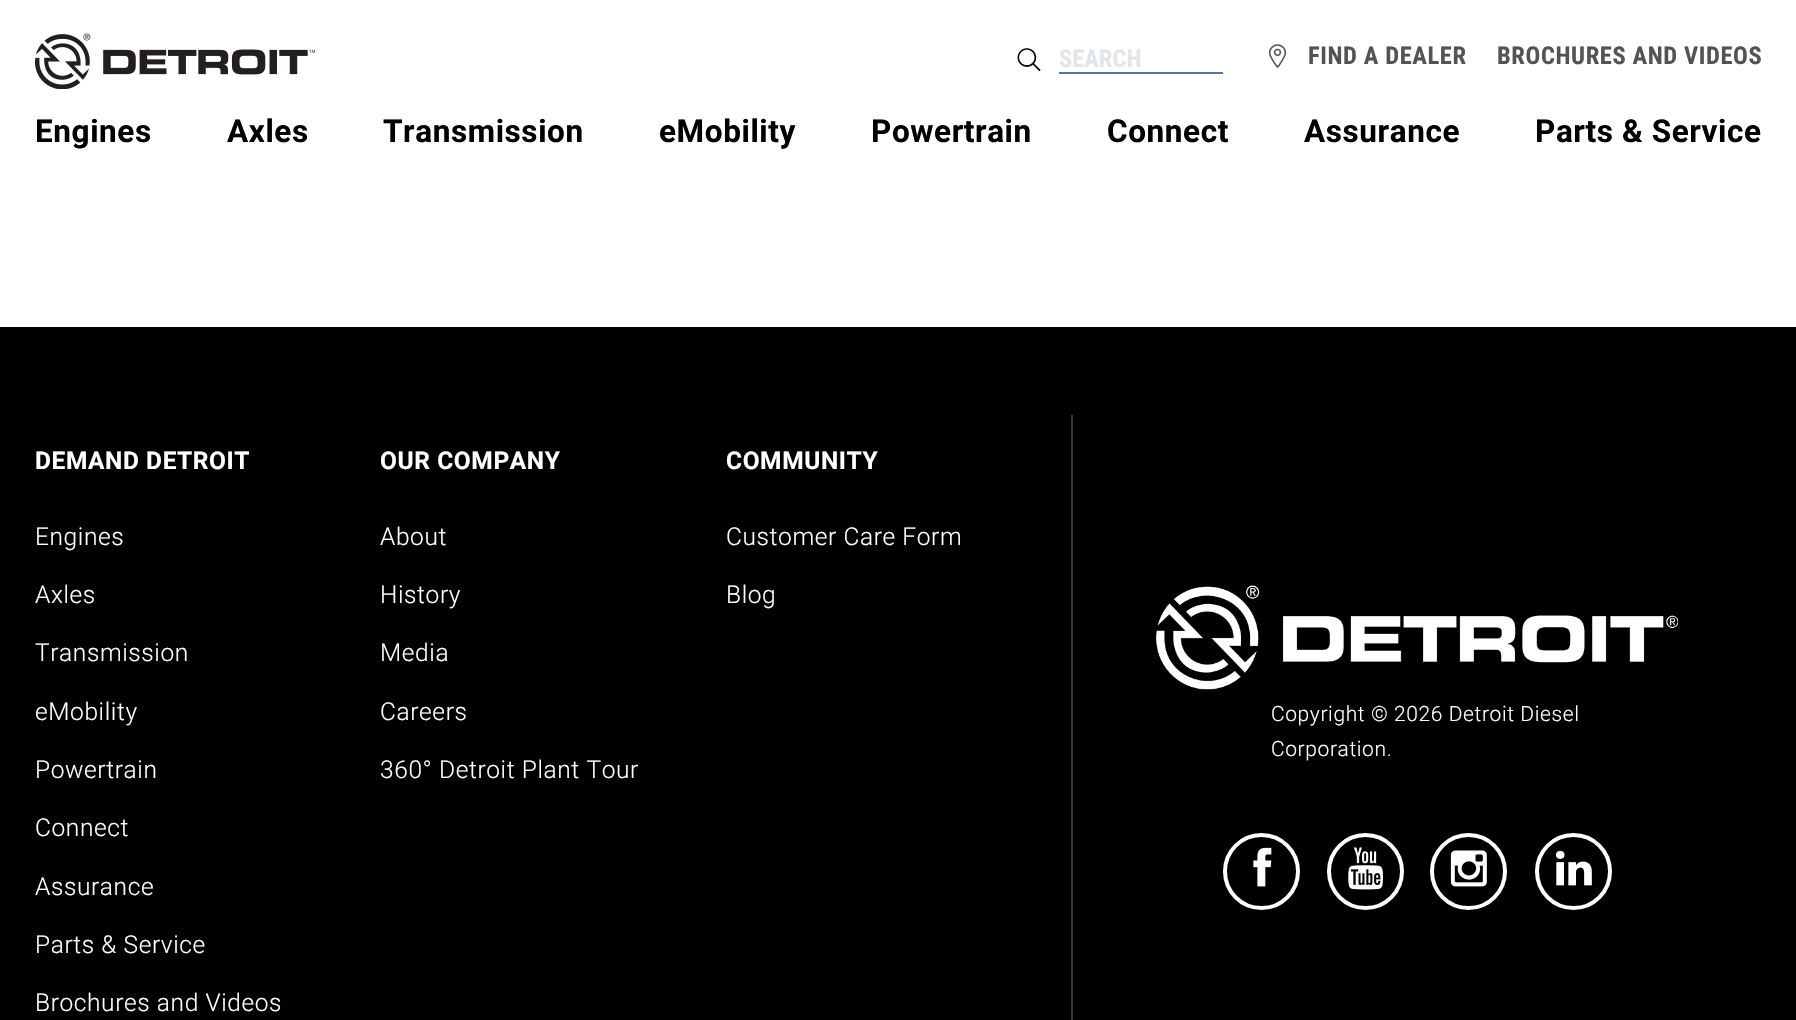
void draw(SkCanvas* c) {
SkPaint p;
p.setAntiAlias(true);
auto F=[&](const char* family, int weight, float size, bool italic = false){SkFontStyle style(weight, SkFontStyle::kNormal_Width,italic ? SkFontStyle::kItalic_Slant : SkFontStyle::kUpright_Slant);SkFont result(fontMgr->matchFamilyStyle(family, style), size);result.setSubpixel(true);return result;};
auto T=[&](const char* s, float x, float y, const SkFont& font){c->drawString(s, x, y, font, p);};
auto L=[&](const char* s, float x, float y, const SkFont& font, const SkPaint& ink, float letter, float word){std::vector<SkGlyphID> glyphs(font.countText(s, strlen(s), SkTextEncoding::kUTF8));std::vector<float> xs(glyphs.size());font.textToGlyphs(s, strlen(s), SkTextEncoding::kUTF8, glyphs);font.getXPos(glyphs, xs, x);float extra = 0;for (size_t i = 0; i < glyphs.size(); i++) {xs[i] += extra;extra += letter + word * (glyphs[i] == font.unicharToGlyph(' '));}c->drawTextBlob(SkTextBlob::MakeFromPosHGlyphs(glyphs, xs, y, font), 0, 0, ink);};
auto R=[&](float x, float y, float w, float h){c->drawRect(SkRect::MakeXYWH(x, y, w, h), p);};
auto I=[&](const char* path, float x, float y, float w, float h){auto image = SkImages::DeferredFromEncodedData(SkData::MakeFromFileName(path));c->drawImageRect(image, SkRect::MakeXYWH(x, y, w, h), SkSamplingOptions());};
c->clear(0xffffffff);
I("1.png",35,33,280,56);
I("2.png",1017,48,24,24);
p.setColor(0xff4c7aa3);
R(1059,72,164,2);
auto f1 = F("Roboto Condensed",700,24.5);
p.setColor(0xffe2e6e9);
T("SEARCH",1059,67,f1);
I("3.png",1268,44,19,24);
p.setColor(0xff525354);
L("FIND A DEALER",1308,64,f1,p,.6,0);
L("BROCHURES AND VIDEOS",1497,64,f1,p,.6,0);
auto f2 = F("Roboto",700,31.5);
p.setColor(0xff000000);
L("Engines",35,142,f2,p,.6,0);
L("Axles",227,142,f2,p,.6,0);
L("Transmission",383,142,f2,p,.6,0);
L("eMobility",659,142,f2,p,.6,0);
L("Powertrain",871,142,f2,p,.6,0);
L("Connect",1107,142,f2,p,.6,0);
L("Assurance",1304,142,f2,p,.6,0);
L("Parts & Service",1535,142,f2,p,.6,0);
R(0,327,1796,693);
auto f3 = F("Roboto",700,24.5);
p.setColor(0xffffffff);
L("DEMAND DETROIT",35,469,f3,p,.6,0);
auto f4 = F("Roboto",300,24.5);
L("Engines",35,545,f4,p,.6,0);
L("Axles",35,603,f4,p,.6,0);
L("Transmission",35,661,f4,p,.6,0);
L("eMobility",35,720,f4,p,.6,0);
L("Powertrain",35,778,f4,p,.6,0);
L("Connect",35,836,f4,p,.6,0);
L("Assurance",35,895,f4,p,.6,0);
L("Parts & Service",35,953,f4,p,.6,0);
L("Brochures and Videos",35,1011,f4,p,.6,0);
L("OUR COMPANY",380,469,f3,p,.6,0);
L("About",380,545,f4,p,.6,0);
L("History",380,603,f4,p,.6,0);
L("Media",380,661,f4,p,.6,0);
L("Careers",380,720,f4,p,.6,0);
L("360° Detroit Plant Tour",380,778,f4,p,.6,0);
L("COMMUNITY",726,469,f3,p,.6,0);
L("Customer Care Form",726,545,f4,p,.6,0);
L("Blog",726,603,f4,p,.6,0);
p.setColor(0xff3b3b3b);
R(1071,415,2,605);
I("4.png",1156,585,523,105);
auto f5 = F("Roboto",300,21);
p.setColor(0xffffffff);
L("Copyright © 2026 Detroit Diesel",1271,721,f5,p,.6,0);
L("Corporation.",1271,756,f5,p,.6,0);
p.setStroke(true);
p.setStrokeWidth(4);
c->drawCircle(1261.5,871.5,36.5,p);
I("5.png",1253,847,19,40);
c->drawCircle(1365.5,871.5,36.5,p);
I("6.png",1348,847,35,43);
c->drawCircle(1468.5,871.5,36.5,p);
I("7.png",1450,850,37,37);
c->drawCircle(1573.5,871.5,36.5,p);
I("8.png",1555,850,37,36);
}
